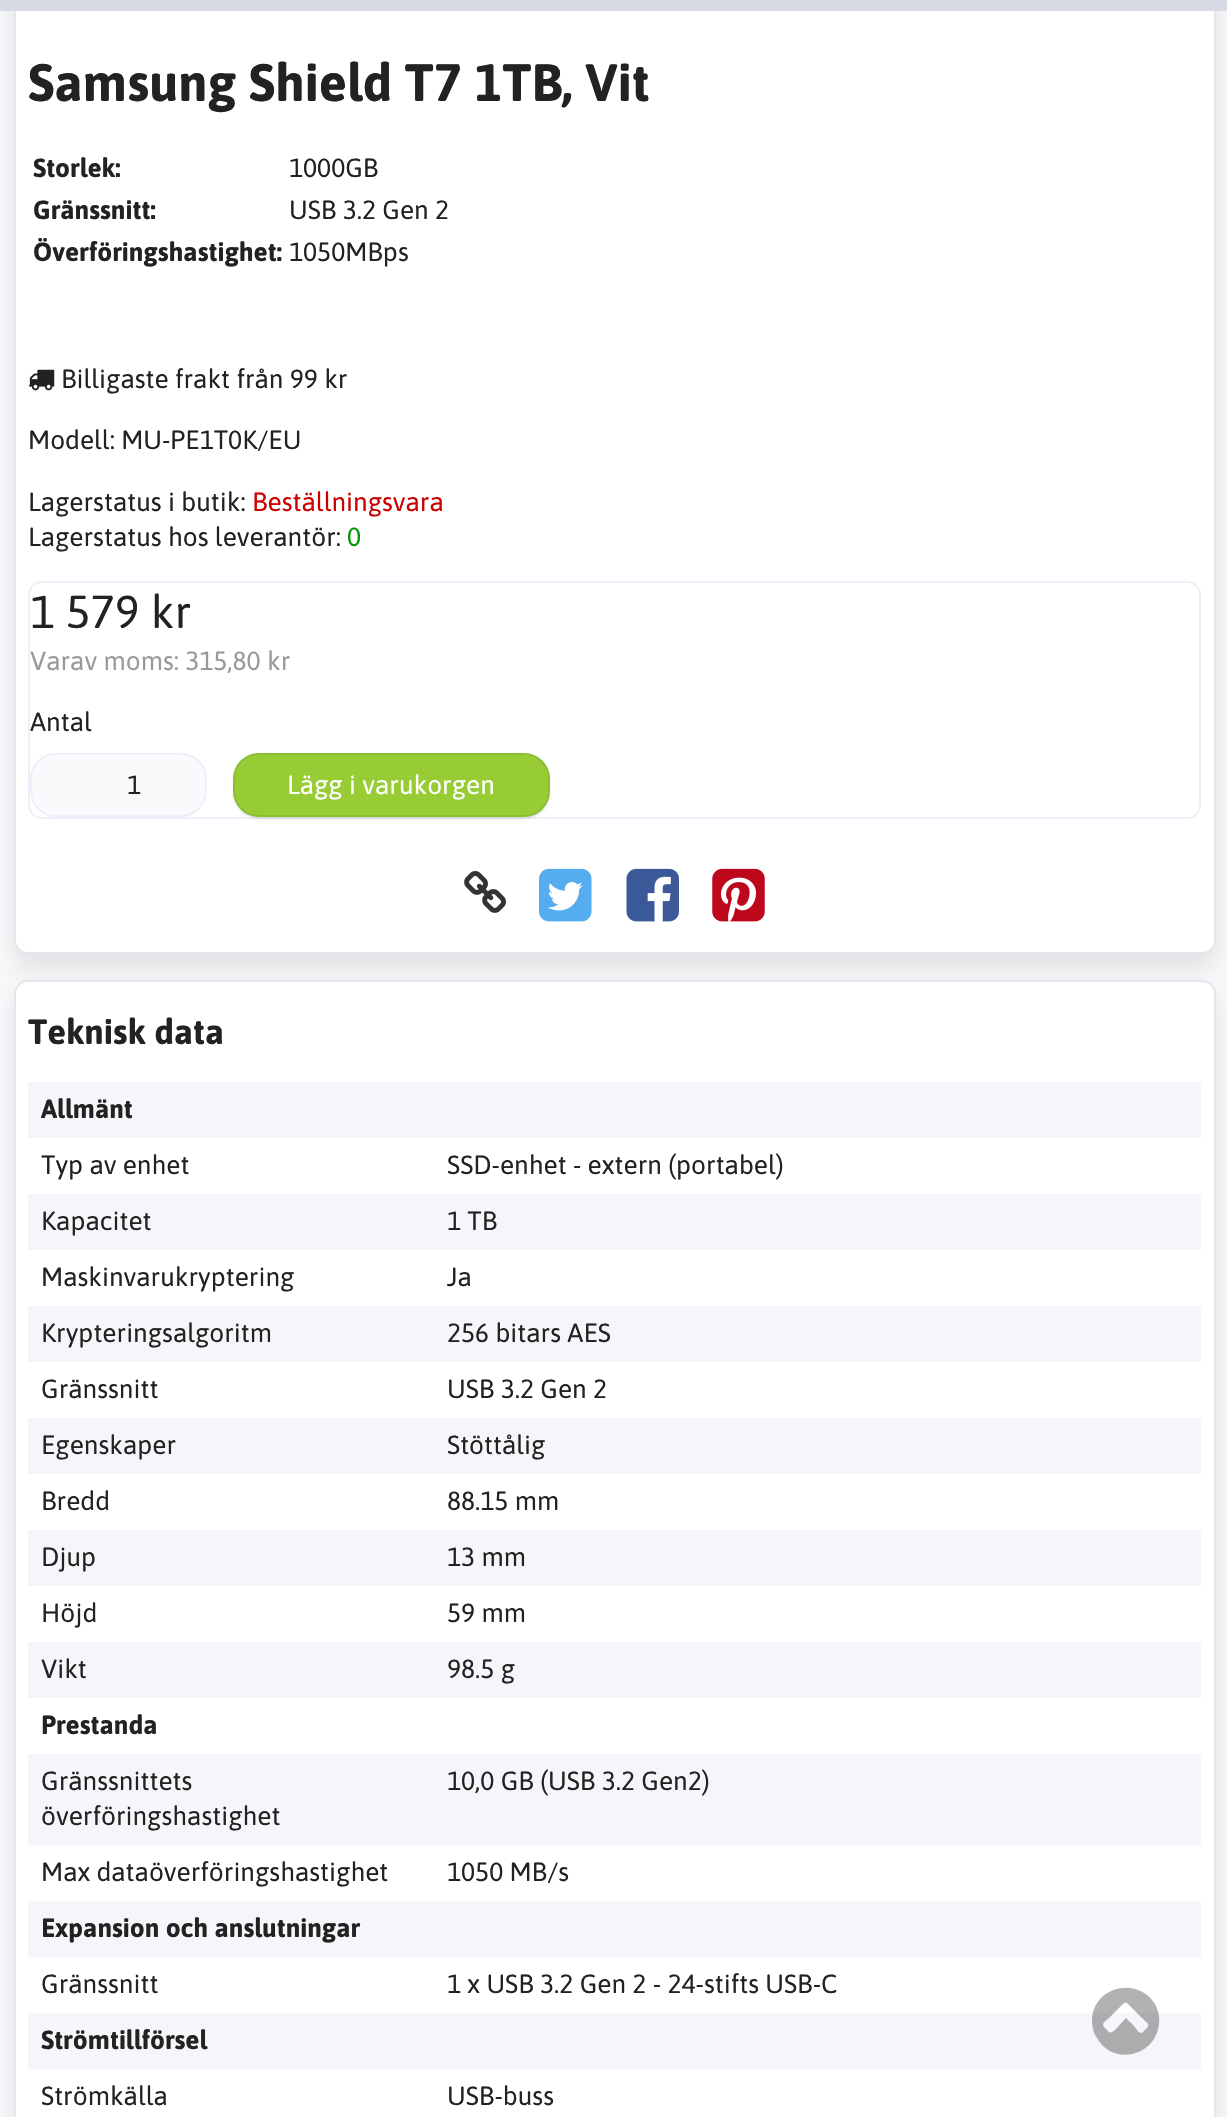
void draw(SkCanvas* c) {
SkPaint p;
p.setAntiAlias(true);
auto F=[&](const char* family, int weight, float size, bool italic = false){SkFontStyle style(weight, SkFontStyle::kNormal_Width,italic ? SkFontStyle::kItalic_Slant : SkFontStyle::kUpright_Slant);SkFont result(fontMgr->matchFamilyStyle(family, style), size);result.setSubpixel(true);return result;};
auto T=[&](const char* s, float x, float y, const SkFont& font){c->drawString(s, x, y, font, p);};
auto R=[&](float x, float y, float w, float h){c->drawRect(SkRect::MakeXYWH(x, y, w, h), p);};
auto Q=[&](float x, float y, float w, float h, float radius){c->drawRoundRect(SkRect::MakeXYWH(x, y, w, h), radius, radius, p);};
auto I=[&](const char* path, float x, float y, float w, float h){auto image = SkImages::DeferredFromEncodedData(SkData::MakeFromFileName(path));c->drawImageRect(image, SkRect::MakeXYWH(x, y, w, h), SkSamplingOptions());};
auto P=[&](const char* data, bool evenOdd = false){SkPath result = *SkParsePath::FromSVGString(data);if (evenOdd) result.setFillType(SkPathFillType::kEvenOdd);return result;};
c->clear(0xfff9fafc);
p.setColor(0x1a000000);
p.setMaskFilter(SkMaskFilter::MakeBlur(kNormal_SkBlurStyle, 13));
c->drawRoundRect(SkRect::MakeXYWH(14,-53,1202,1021),14,14,p);
p.setMaskFilter(nullptr);
p.setColor(0xffffffff);
Q(14,-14,1202,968,14);
p.setStroke(true);
p.setStrokeWidth(2);
p.setColor(0x2643617c);
c->drawRoundRect(SkRect::MakeXYWH(15,-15,1200,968),13,13,p);
p.setStroke(false);
p.setColor(0xffd7dae3);
R(0,0,1227,11);
auto f1 = F("Asap",700,52.5);
p.setColor(0xff222222);
T("Samsung Shield T7 1TB, Vit",28,101,f1);
auto f2 = F("Asap",700,26.25);
T("Storlek:",33,177,f2);
auto f3 = F("Asap",400,26.25);
T("1000GB",289,177,f3);
T("Gränssnitt:",33,219,f2);
T("USB 3.2 Gen 2",289,219,f3);
T("Överföringshastighet:",33,261,f2);
T("1050MBps",289,261,f3);
I("1.png",29,369,26,22);
T("Billigaste frakt från 99 kr",61,388,f3);
T("Modell: MU-PE1T0K/EU",28,449,f3);
T("Lagerstatus i butik:",28,511,f3);
p.setColor(0xffcc0000);
T("Beställningsvara",252,511,f3);
p.setColor(0xff222222);
T("Lagerstatus hos leverantör:",28,546,f3);
p.setColor(0xff009900);
T("0",347,546,f3);
p.setStroke(true);
p.setColor(0xffefeff9);
c->drawRoundRect(SkRect::MakeXYWH(29,582,1171,236),13,13,p);
auto f4 = F("Asap",400,46);
p.setStroke(false);
p.setColor(0xff222222);
T("1 579 kr",30,628,f4);
p.setColor(0xff999999);
T("Varav moms: 315,80 kr",30,670,f3);
p.setColor(0xff222222);
T("Antal",30,731,f3);
p.setColor(0xfffafafc);
c->drawRoundRect(SkRect::MakeXYWH(31,754,175,62),25,25,p);
p.setStroke(true);
p.setColor(0xffefeff9);
c->drawRoundRect(SkRect::MakeXYWH(31,754,175,62),25,25,p);
p.setStroke(false);
p.setColor(0xff222222);
T("1",127,794,f3);
p.setColor(0x1a000000);
p.setMaskFilter(SkMaskFilter::MakeBlur(kNormal_SkBlurStyle, 1));
c->drawRoundRect(SkRect::MakeXYWH(233,754,317,65),26,26,p);
p.setMaskFilter(nullptr);
p.setColor(0xff98cc34);
Q(233,753,317,64,26);
p.setStroke(true);
p.setColor(0x12000000);
c->drawRoundRect(SkRect::MakeXYWH(234,754,315,62),25,25,p);
p.setStroke(false);
p.setColor(0xffffffff);
T("Lägg i varukorgen",287,794,f3);
I("2.png",464,871,42,42);
I("3.png",539,868,53,54);
I("4.png",626,868,53,54);
I("5.png",712,868,53,54);
p.setColor(0x1a000000);
p.setMaskFilter(SkMaskFilter::MakeBlur(kNormal_SkBlurStyle, 13));
c->drawRoundRect(SkRect::MakeXYWH(14,994,1202,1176),14,14,p);
p.setMaskFilter(nullptr);
p.setColor(0xffffffff);
Q(14,980,1202,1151,14);
p.setStroke(true);
p.setColor(0x2643617c);
c->drawRoundRect(SkRect::MakeXYWH(15,981,1200,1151),13,13,p);
auto f5 = F("Asap",700,35);
p.setStroke(false);
p.setColor(0xff222222);
T("Teknisk data",28,1044,f5);
p.setColor(0xfff5f6f9);
R(28,1082,1173,56);
p.setColor(0xff222222);
T("Allmänt",41,1118,f2);
T("Typ av enhet",41,1174,f3);
T("SSD-enhet - extern (portabel)",447,1174,f3);
p.setColor(0xfff5f6f9);
R(28,1194,1173,56);
p.setColor(0xff222222);
T("Kapacitet",41,1230,f3);
T("1 TB",447,1230,f3);
T("Maskinvarukryptering",41,1286,f3);
T("Ja",447,1286,f3);
p.setColor(0xfff5f6f9);
R(28,1306,1173,56);
p.setColor(0xff222222);
T("Krypteringsalgoritm",41,1342,f3);
T("256 bitars AES",447,1342,f3);
T("Gränssnitt",41,1398,f3);
T("USB 3.2 Gen 2",447,1398,f3);
p.setColor(0xfff5f6f9);
R(28,1418,1173,56);
p.setColor(0xff222222);
T("Egenskaper",41,1454,f3);
T("Stöttålig",447,1454,f3);
T("Bredd",41,1510,f3);
T("88.15 mm",447,1510,f3);
p.setColor(0xfff5f6f9);
R(28,1530,1173,56);
p.setColor(0xff222222);
T("Djup",41,1566,f3);
T("13 mm",447,1566,f3);
T("Höjd",41,1622,f3);
T("59 mm",447,1622,f3);
p.setColor(0xfff5f6f9);
R(28,1642,1173,56);
p.setColor(0xff222222);
T("Vikt",41,1678,f3);
T("98.5 g",447,1678,f3);
T("Prestanda",41,1734,f2);
p.setColor(0xfff5f6f9);
R(28,1754,1173,91);
p.setColor(0xff222222);
T("Gränssnittets",41,1790,f3);
T("överföringshastighet",41,1825,f3);
T("10,0 GB (USB 3.2 Gen2)",447,1790,f3);
T("Max dataöverföringshastighet",41,1881,f3);
T("1050 MB/s",447,1881,f3);
p.setColor(0xfff5f6f9);
R(28,1901,1173,56);
p.setColor(0xff222222);
T("Expansion och anslutningar",41,1937,f2);
T("Gränssnitt",41,1993,f3);
T("1 x USB 3.2 Gen 2 - 24-stifts USB-C",447,1993,f3);
p.setColor(0xfff5f6f9);
R(28,2013,1173,56);
p.setColor(0xff222222);
T("Strömtillförsel",41,2049,f2);
T("Strömkälla",41,2105,f3);
T("USB-buss",447,2105,f3);
p.setColor(0x4d000000);
c->drawPath(P("M1143 2032c8-8 7-6-2-15l-10-10c-6-6-5-6-11 0l-10 10c-4 4-10 6-5 11c5 5 5 6 10 2l11-12l9 9c1 2 5 8 8 5zm12-28c3 6 5 13 4 19c-2 33-46 44-62 15c-4-6-5-12-5-19c2-33 46-43 63-15z"),p);
}
